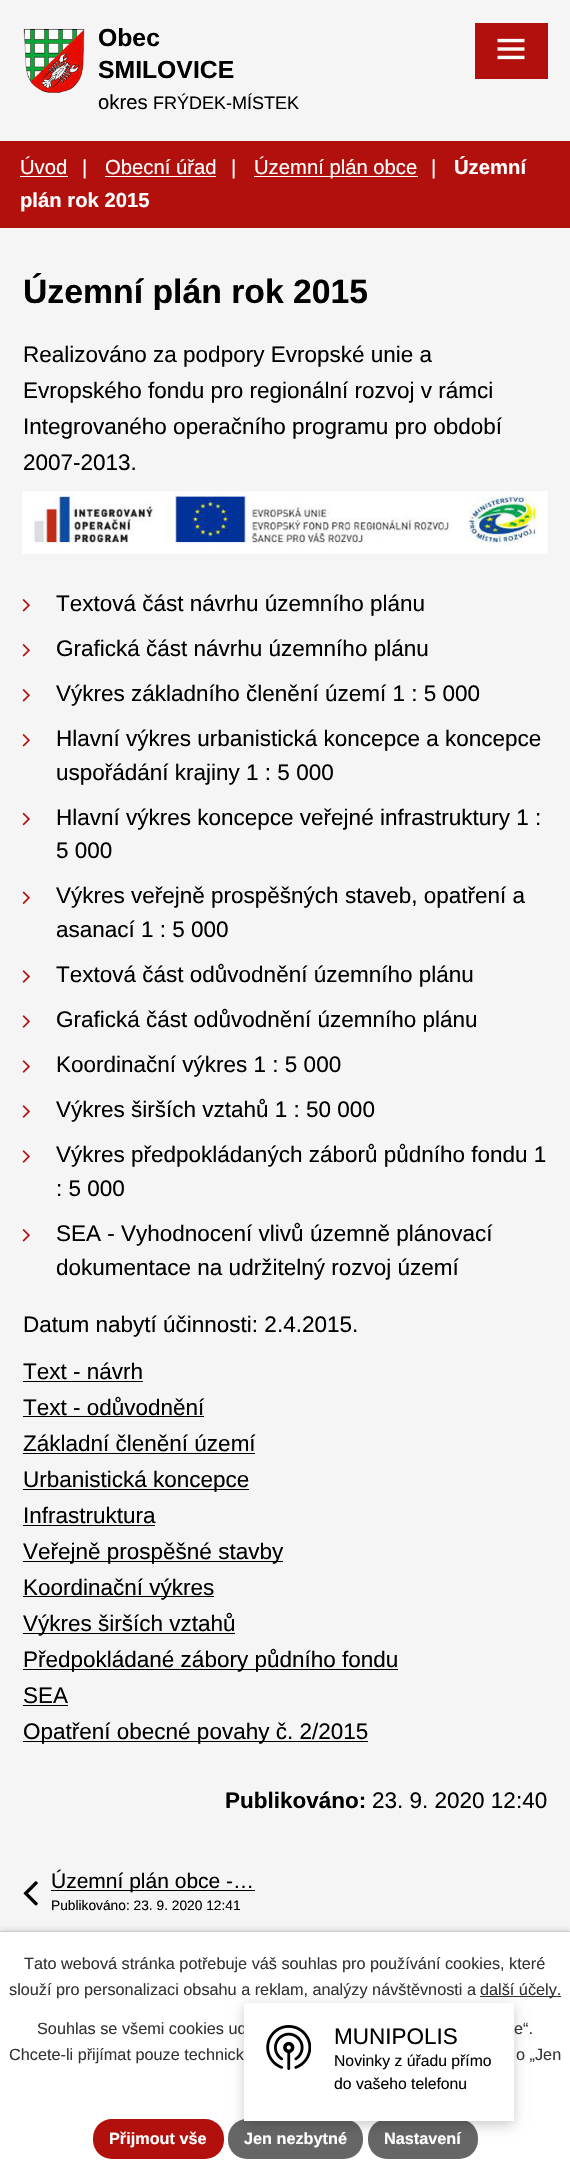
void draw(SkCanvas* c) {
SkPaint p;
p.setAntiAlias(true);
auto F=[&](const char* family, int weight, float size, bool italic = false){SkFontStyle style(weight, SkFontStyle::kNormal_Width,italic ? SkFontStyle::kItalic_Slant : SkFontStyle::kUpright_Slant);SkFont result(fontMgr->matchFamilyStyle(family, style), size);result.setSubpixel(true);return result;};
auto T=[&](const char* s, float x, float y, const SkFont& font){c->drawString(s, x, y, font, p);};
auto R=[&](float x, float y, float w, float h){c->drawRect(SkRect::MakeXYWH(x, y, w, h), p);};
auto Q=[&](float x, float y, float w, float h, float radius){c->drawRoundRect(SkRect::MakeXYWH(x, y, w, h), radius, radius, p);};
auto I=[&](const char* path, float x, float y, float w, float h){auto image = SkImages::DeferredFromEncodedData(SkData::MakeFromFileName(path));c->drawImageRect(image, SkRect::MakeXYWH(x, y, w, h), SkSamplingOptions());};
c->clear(0xfff5f5f5);
I("1.png",23,28,62,65);
auto f1 = F("Liberation Sans",700,24.75);
p.setColor(0xff000000);
T("Obec",98,46,f1);
T("SMILOVICE",98,78,f1);
auto f2 = F("Liberation Sans",400,20.25);
T("okres",98,109,f2);
auto f3 = F("Liberation Sans",400,18);
T("FRÝDEK-MÍSTEK",153,109,f3);
p.setColor(0xffb2100d);
R(475,23,73,56);
I("2.png",497,38,28,22);
R(0,141,570,87);
p.setColor(0xffffffff);
T("Úvod",20,174,f2);
R(20,176,48,1);
T("|",82,174,f2);
T("Obecní úřad",105,174,f2);
R(105,176,111,1);
T("|",231,174,f2);
R(254,176,164,1);
T("Územní plán obce",254,174,f2);
T("|",431,174,f2);
auto f4 = F("Liberation Sans",700,20.25);
T("Územní",454,174,f4);
T("plán rok 2015",20,207,f4);
auto f5 = F("Liberation Sans",700,33.75);
p.setColor(0xff000000);
T("Územní plán rok 2015",23,303,f5);
auto f6 = F("Liberation Sans",400,22.5);
T("Realizováno za podpory Evropské unie a",23,362,f6);
T("Evropského fondu pro regionální rozvoj v rámci",23,398,f6);
T("Integrovaného operačního programu pro období",23,434,f6);
T("2007-2013.",23,470,f6);
I("3.png",22,491,526,63);
I("4.png",22,599,8,13);
T("Textová část návrhu územního plánu",56,611,f6);
I("4.png",22,644,8,13);
T("Grafická část návrhu územního plánu",56,656,f6);
I("4.png",22,689,8,13);
T("Výkres základního členění území 1 : 5 000",56,701,f6);
I("4.png",22,734,8,13);
T("Hlavní výkres urbanistická koncepce a koncepce",56,746,f6);
T("uspořádání krajiny 1 : 5 000",56,780,f6);
I("5.png",22,812,8,14);
T("Hlavní výkres koncepce veřejné infrastruktury 1 :",56,825,f6);
T("5 000",56,858,f6);
I("6.png",22,891,8,13);
T("Výkres veřejně prospěšných staveb, opatření a",56,903,f6);
T("asanací 1 : 5 000",56,937,f6);
I("7.png",22,970,8,13);
T("Textová část odůvodnění územního plánu",56,982,f6);
I("7.png",22,1015,8,13);
T("Grafická část odůvodnění územního plánu",56,1027,f6);
I("7.png",22,1060,8,13);
T("Koordinační výkres 1 : 5 000",56,1072,f6);
I("7.png",22,1105,8,13);
T("Výkres širších vztahů 1 : 50 000",56,1117,f6);
I("7.png",22,1150,8,13);
T("Výkres předpokládaných záborů půdního fondu 1",56,1162,f6);
T(": 5 000",56,1196,f6);
I("4.png",22,1229,8,13);
T("SEA - Vyhodnocení vlivů územně plánovací",56,1241,f6);
T("dokumentace na udržitelný rozvoj území",56,1275,f6);
T("Datum nabytí účinnosti: 2.4.2015.",23,1332,f6);
T("Text - návrh",23,1379,f6);
R(23,1381,120,1);
T("Text - odůvodnění",23,1415,f6);
R(23,1416,181,1);
T("Základní členění území",23,1451,f6);
R(23,1453,232,1);
R(23,1489,226,1);
T("Urbanistická koncepce",23,1487,f6);
T("Infrastruktura",23,1523,f6);
R(23,1525,132,1);
R(23,1561,260,1);
T("Veřejně prospěšné stavby",23,1559,f6);
R(23,1596,191,1);
T("Koordinační výkres",23,1595,f6);
R(23,1633,212,1);
T("Výkres širších vztahů",23,1631,f6);
R(23,1669,375,1);
T("Předpokládané zábory půdního fondu",23,1667,f6);
T("SEA",23,1703,f6);
R(23,1705,45,1);
R(23,1741,345,1);
T("Opatření obecné povahy č. 2/2015",23,1739,f6);
auto f7 = F("Liberation Sans",700,22.5);
T("Publikováno:",225,1808,f7);
T("23. 9. 2020 12:40",372,1808,f6);
I("8.png",23,1881,15,25);
R(51,1890,204,1);
auto f8 = F("Liberation Sans",400,21);
T("Územní plán obce -…",51,1888,f8);
auto f9 = F("Liberation Sans",400,13.75);
T("Publikováno: 23. 9. 2020 12:41",51,1910,f9);
p.setColor(0x33000000);
p.setMaskFilter(SkMaskFilter::MakeBlur(kNormal_SkBlurStyle, 3));
c->drawRect(SkRect::MakeXYWH(0,1931,570,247),p);
p.setMaskFilter(nullptr);
p.setColor(0xffffffff);
R(0,1932,570,245);
p.setColor(0xff333333);
R(480,1996,81,1);
p.setColor(0xff666666);
Q(228,2119,135,40,19);
Q(368,2119,110,40,19);
p.setColor(0x33000000);
p.setMaskFilter(SkMaskFilter::MakeBlur(kNormal_SkBlurStyle, 6));
c->drawRect(SkRect::MakeXYWH(244,2006,270,119),p);
p.setMaskFilter(nullptr);
auto f10 = F("Liberation Sans",400,16.25);
p.setColor(0xff333333);
T("Souhlas se všemi cookies ud",37,2034,f10);
p.setColor(0xffffffff);
R(244,2003,270,118);
I("9.png",266,2025,45,45);
p.setColor(0xff000000);
T("MUNIPOLIS",334,2044,f6);
auto f11 = F("Liberation Sans",400,15.75);
T("Novinky z úřadu přímo",334,2066,f11);
T("do vašeho telefonu",334,2089,f11);
p.setColor(0xffcccccc);
R(0,1931,570,1);
p.setColor(0xff333333);
T("Tato webová stránka potřebuje váš souhlas pro používání cookies, které",24,1969,f10);
T("slouží pro personalizaci obsahu a reklam, analýzy návštěvnosti a",9,1995,f10);
T("další účely.",480,1995,f10);
T("e“.",514,2034,f10);
T("Chcete-li přijímat pouze technick",9,2060,f10);
T("o „Jen",516,2060,f10);
p.setColor(0xffb2100d);
Q(93,2119,131,40,19);
auto f12 = F("Liberation Sans",700,16.25);
p.setColor(0xffffffff);
T("Přijmout vše",109,2144,f12);
T("Jen nezbytné",244,2144,f12);
T("Nastavení",384,2144,f12);
}
